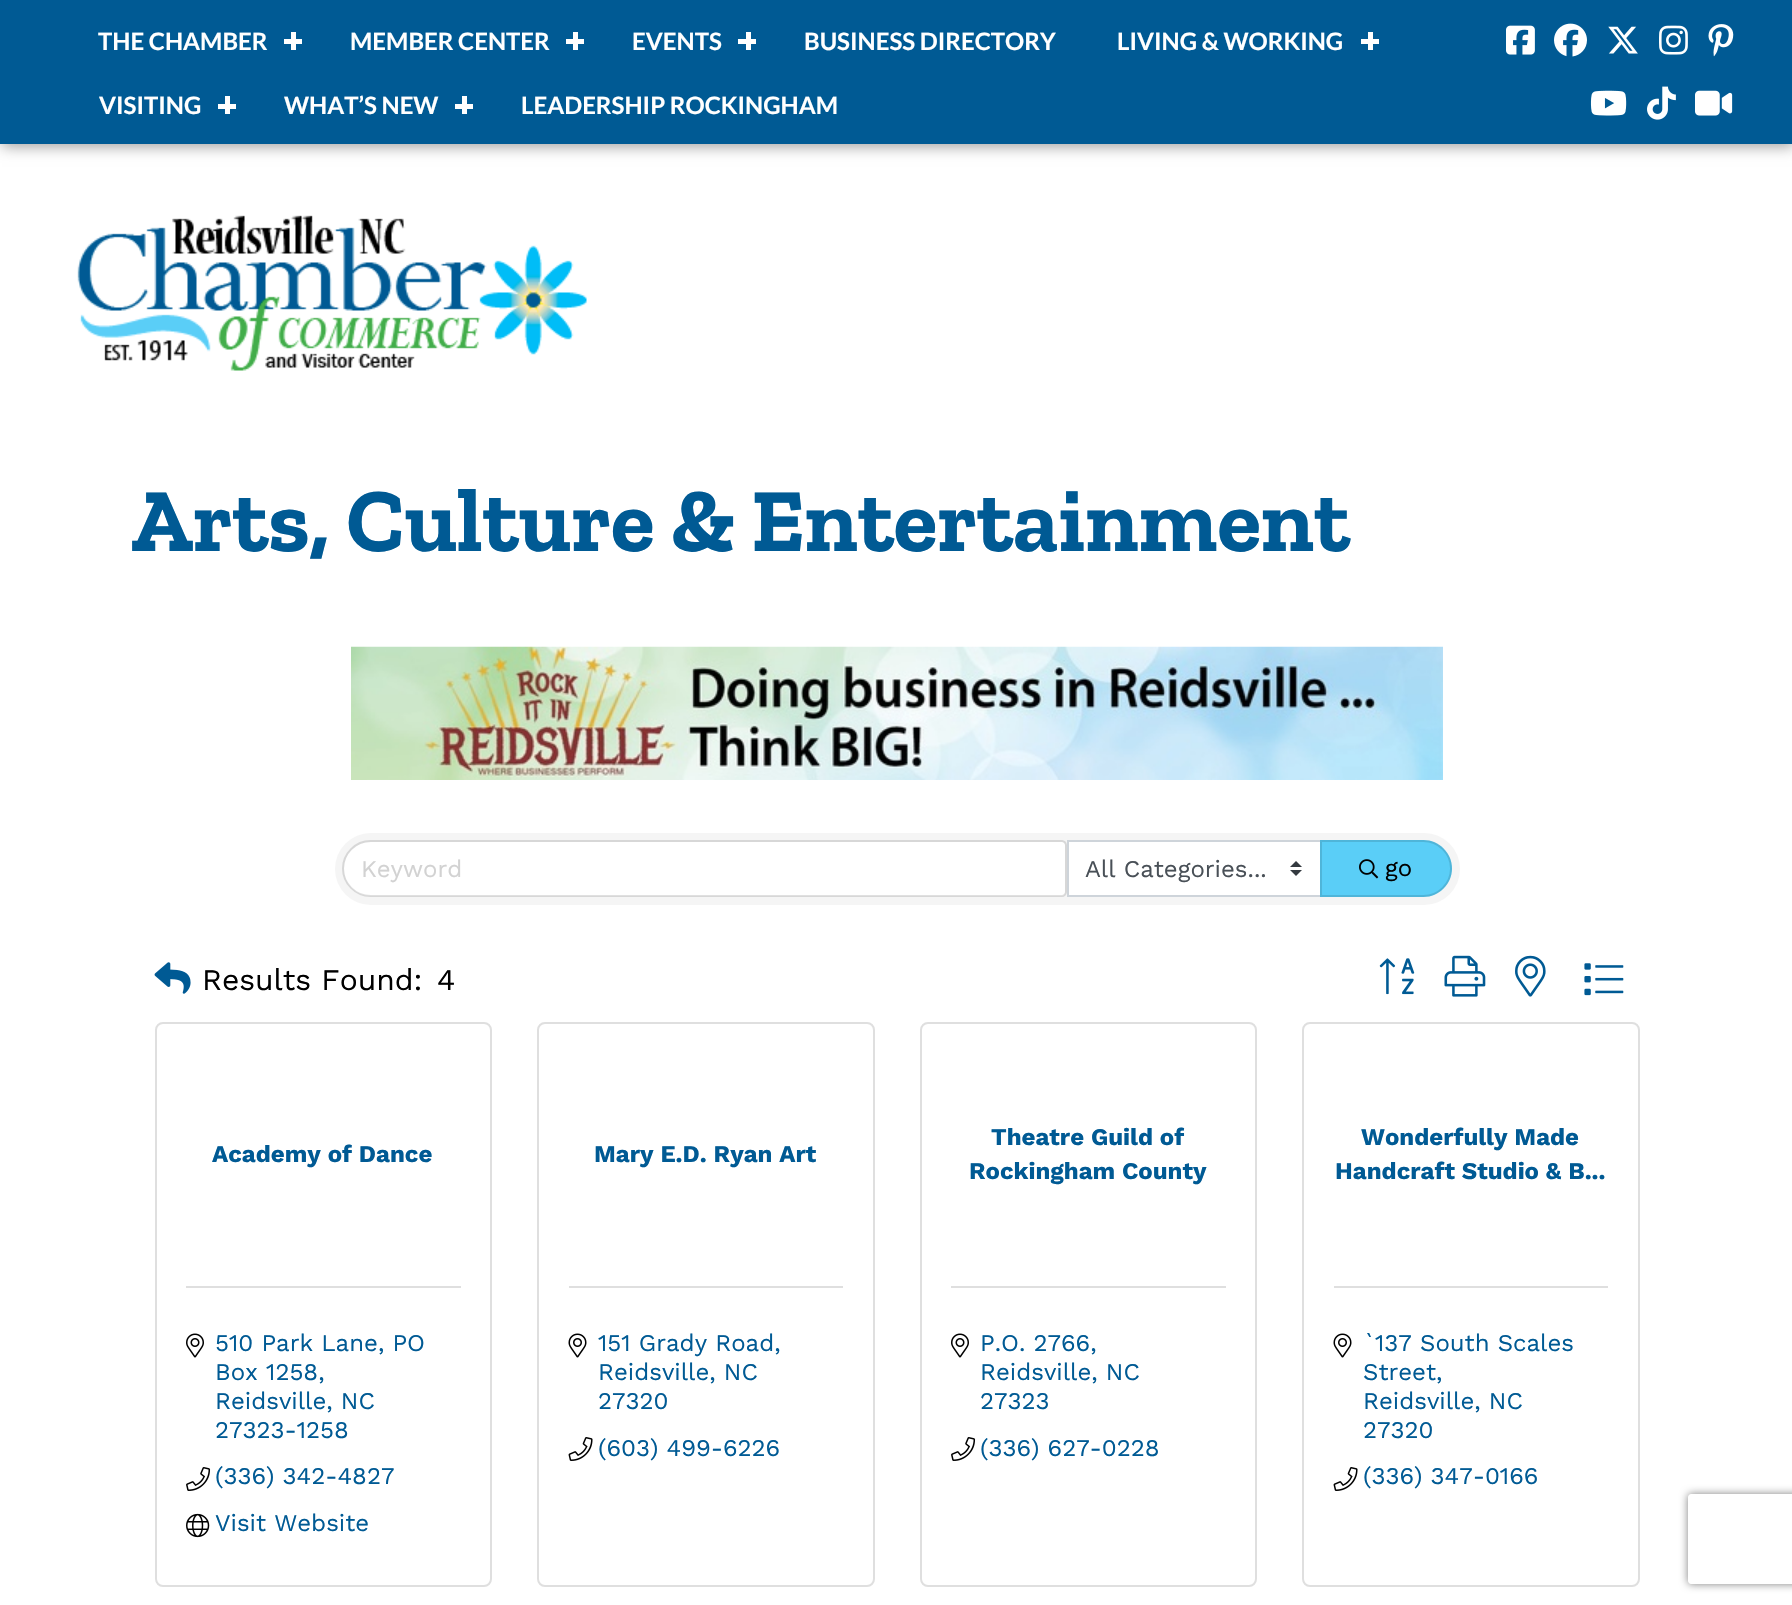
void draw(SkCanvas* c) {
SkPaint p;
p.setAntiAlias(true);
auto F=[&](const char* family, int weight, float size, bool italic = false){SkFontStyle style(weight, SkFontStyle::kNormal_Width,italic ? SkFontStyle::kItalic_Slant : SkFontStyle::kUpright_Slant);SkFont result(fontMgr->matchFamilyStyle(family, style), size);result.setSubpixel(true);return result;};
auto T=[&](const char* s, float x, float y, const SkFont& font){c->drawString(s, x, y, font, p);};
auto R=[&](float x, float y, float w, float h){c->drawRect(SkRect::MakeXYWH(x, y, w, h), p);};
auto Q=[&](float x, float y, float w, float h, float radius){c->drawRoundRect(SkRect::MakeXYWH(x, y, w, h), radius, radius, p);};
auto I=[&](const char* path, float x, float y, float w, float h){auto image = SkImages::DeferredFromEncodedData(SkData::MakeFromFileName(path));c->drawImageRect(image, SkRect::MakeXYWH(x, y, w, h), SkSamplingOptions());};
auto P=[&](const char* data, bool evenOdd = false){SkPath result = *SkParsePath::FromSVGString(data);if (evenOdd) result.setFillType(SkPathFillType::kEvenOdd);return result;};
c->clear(0xffffffff);
p.setColor(0xff999999);
p.setMaskFilter(SkMaskFilter::MakeBlur(kNormal_SkBlurStyle, 7));
c->drawRect(SkRect::MakeXYWH(2,2,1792,144),p);
p.setMaskFilter(nullptr);
p.setColor(0xff005a94);
R(0,0,1792,144);
auto f1 = F("Lato",700,24);
p.setColor(0xffffffff);
T("THE CHAMBER",98,50,f1);
R(284,39,18,5);
R(291,32,5,18);
T("MEMBER CENTER",350,50,f1);
R(566,39,18,5);
R(573,32,5,18);
T("EVENTS",632,50,f1);
R(738,39,18,5);
R(746,32,5,18);
T("BUSINESS DIRECTORY",804,50,f1);
T("LIVING & WORKING",1117,50,f1);
R(1361,39,18,5);
R(1368,32,5,18);
T("VISITING",99,114,f1);
R(218,104,18,5);
R(225,96,5,18);
T("WHAT’S NEW",284,114,f1);
R(455,104,18,5);
R(462,96,5,18);
T("LEADERSHIP ROCKINGHAM",521,114,f1);
I("1.png",1506,25,29,30);
I("2.png",1554,23,33,34);
I("3.png",1608,26,30,28);
I("4.png",1659,25,29,30);
I("5.png",1708,24,26,33);
I("6.png",1590,90,37,26);
I("7.png",1647,86,29,34);
I("8.png",1695,90,38,26);
I("9.png",77,215,510,156);
auto f2 = F("Zilla Slab",700,90);
p.setColor(0xff005a94);
T("Arts, Culture & Entertainment",131,551,f2);
I("10.png",351,646,1092,134);
p.setColor(0xfff5f5f5);
Q(335,833,1125,72,36);
p.setColor(0xffffffff);
c->drawPath(P("M371 842h691c1.5 0 3 1.5 3 3v48c0 1.5-1.5 3-3 3h-691c-15 0-27-12-27-27c0-15 12-27 27-27z"),p);
p.setStroke(true);
p.setStrokeWidth(2);
p.setColor(0x1f000000);
c->drawPath(P("M370.5 841h691.5c2 0 4 2 4 4v47c0 2-2 4-4 4h-691.5c-15 0-27.5-12.5-27.5-27.5c0-15 12.5-27.5 27.5-27.5z"),p);
auto f3 = F("Work Sans",400,24);
p.setStroke(false);
p.setColor(0xffd2d2d2);
T("Keyword",361,877,f3);
p.setColor(0xffffffff);
R(1069,842,251,53);
I("11.png",1290,861,12,15);
p.setStroke(true);
p.setColor(0xffced4da);
c->drawRect(SkRect::MakeXYWH(1068,841,253,55),p);
p.setStroke(false);
p.setColor(0xff495057);
T("All Categories...",1085,877,f3);
p.setColor(0xff5acef7);
c->drawPath(P("M1320 840h103.5c15.5 0 28.5 13 28.5 28.5c0 15.5-13 28.5-28.5 28.5h-103.5z"),p);
p.setStroke(true);
p.setColor(0x1f000000);
c->drawPath(P("M1321 841h102.5c15 0 27.5 12.5 27.5 27.5c0 15-12.5 27.5-27.5 27.5h-102.5z"),p);
I("12.png",1359,859,20,20);
p.setStroke(false);
p.setColor(0xff000000);
T("go",1385,876,f3);
I("13.png",154,962,37,32);
auto f4 = F("Work Sans",400,30);
T("Results Found:",202,990,f4);
T("4",437,990,f4);
I("14.png",1379,958,36,37);
I("15.png",1444,955,42,42);
I("16.png",1515,955,31,42);
I("17.png",1584,963,40,33);
p.setStroke(true);
p.setColor(0xffdfdfdf);
c->drawRoundRect(SkRect::MakeXYWH(156,1023,335,563),7,7,p);
auto f5 = F("Work Sans",700,24);
p.setStroke(false);
p.setColor(0xff005a94);
T("Academy of Dance",212,1162,f5);
p.setColor(0xffdfdfdf);
R(186,1286,275,2);
I("18.png",186,1333,18,25);
p.setColor(0xff005a94);
T("510 Park Lane, PO",215,1351,f3);
T("Box 1258,",215,1380,f3);
T("Reidsville, NC",215,1409,f3);
T("27323-1258",215,1438,f3);
I("19.png",186,1467,25,24);
T("(336) 342-4827",215,1484,f3);
I("20.png",186,1513,24,25);
T("Visit Website",215,1531,f3);
p.setStroke(true);
p.setColor(0xffdfdfdf);
c->drawRoundRect(SkRect::MakeXYWH(538,1023,336,563),7,7,p);
p.setStroke(false);
p.setColor(0xff005a94);
T("Mary E.D. Ryan Art",594,1162,f5);
p.setColor(0xffdfdfdf);
R(569,1286,274,2);
I("21.png",568,1333,19,25);
p.setColor(0xff005a94);
T("151 Grady Road,",598,1351,f3);
T("Reidsville, NC",598,1380,f3);
T("27320",598,1409,f3);
I("22.png",568,1437,25,24);
T("(603) 499-6226",598,1456,f3);
p.setStroke(true);
p.setColor(0xffdfdfdf);
c->drawRoundRect(SkRect::MakeXYWH(921,1023,335,563),7,7,p);
p.setStroke(false);
p.setColor(0xff005a94);
T("Theatre Guild of",991,1145,f5);
T("Rockingham County",969,1179,f5);
p.setColor(0xffdfdfdf);
R(951,1286,275,2);
I("18.png",951,1333,18,25);
p.setColor(0xff005a94);
T("P.O. 2766,",980,1351,f3);
T("Reidsville, NC",980,1380,f3);
T("27323",980,1409,f3);
I("19.png",951,1437,25,24);
T("(336) 627-0228",980,1456,f3);
p.setStroke(true);
p.setColor(0xffdfdfdf);
c->drawRoundRect(SkRect::MakeXYWH(1303,1023,336,563),7,7,p);
p.setStroke(false);
p.setColor(0xff005a94);
T("Wonderfully Made",1361,1145,f5);
T("Handcraft Studio & B...",1335,1179,f5);
p.setColor(0xffdfdfdf);
R(1334,1286,274,2);
I("21.png",1333,1333,19,25);
p.setColor(0xff005a94);
T("`137 South Scales",1363,1351,f3);
T("Street,",1363,1380,f3);
T("Reidsville, NC",1363,1409,f3);
T("27320",1363,1438,f3);
I("22.png",1333,1467,25,24);
T("(336) 347-0166",1363,1484,f3);
c->save();
c->clipPath(P("M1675 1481h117v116h-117zm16 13h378c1.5 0 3 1.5 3 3v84c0 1.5-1.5 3-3 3h-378c-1.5 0-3-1.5-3-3v-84c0-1.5 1.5-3 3-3z",true),true);
p.setColor(0xff808080);
p.setMaskFilter(SkMaskFilter::MakeBlur(kNormal_SkBlurStyle, 4));
c->drawRoundRect(SkRect::MakeXYWH(1688,1494,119,90),3,3,p);
p.setMaskFilter(nullptr);
c->restore();
}
